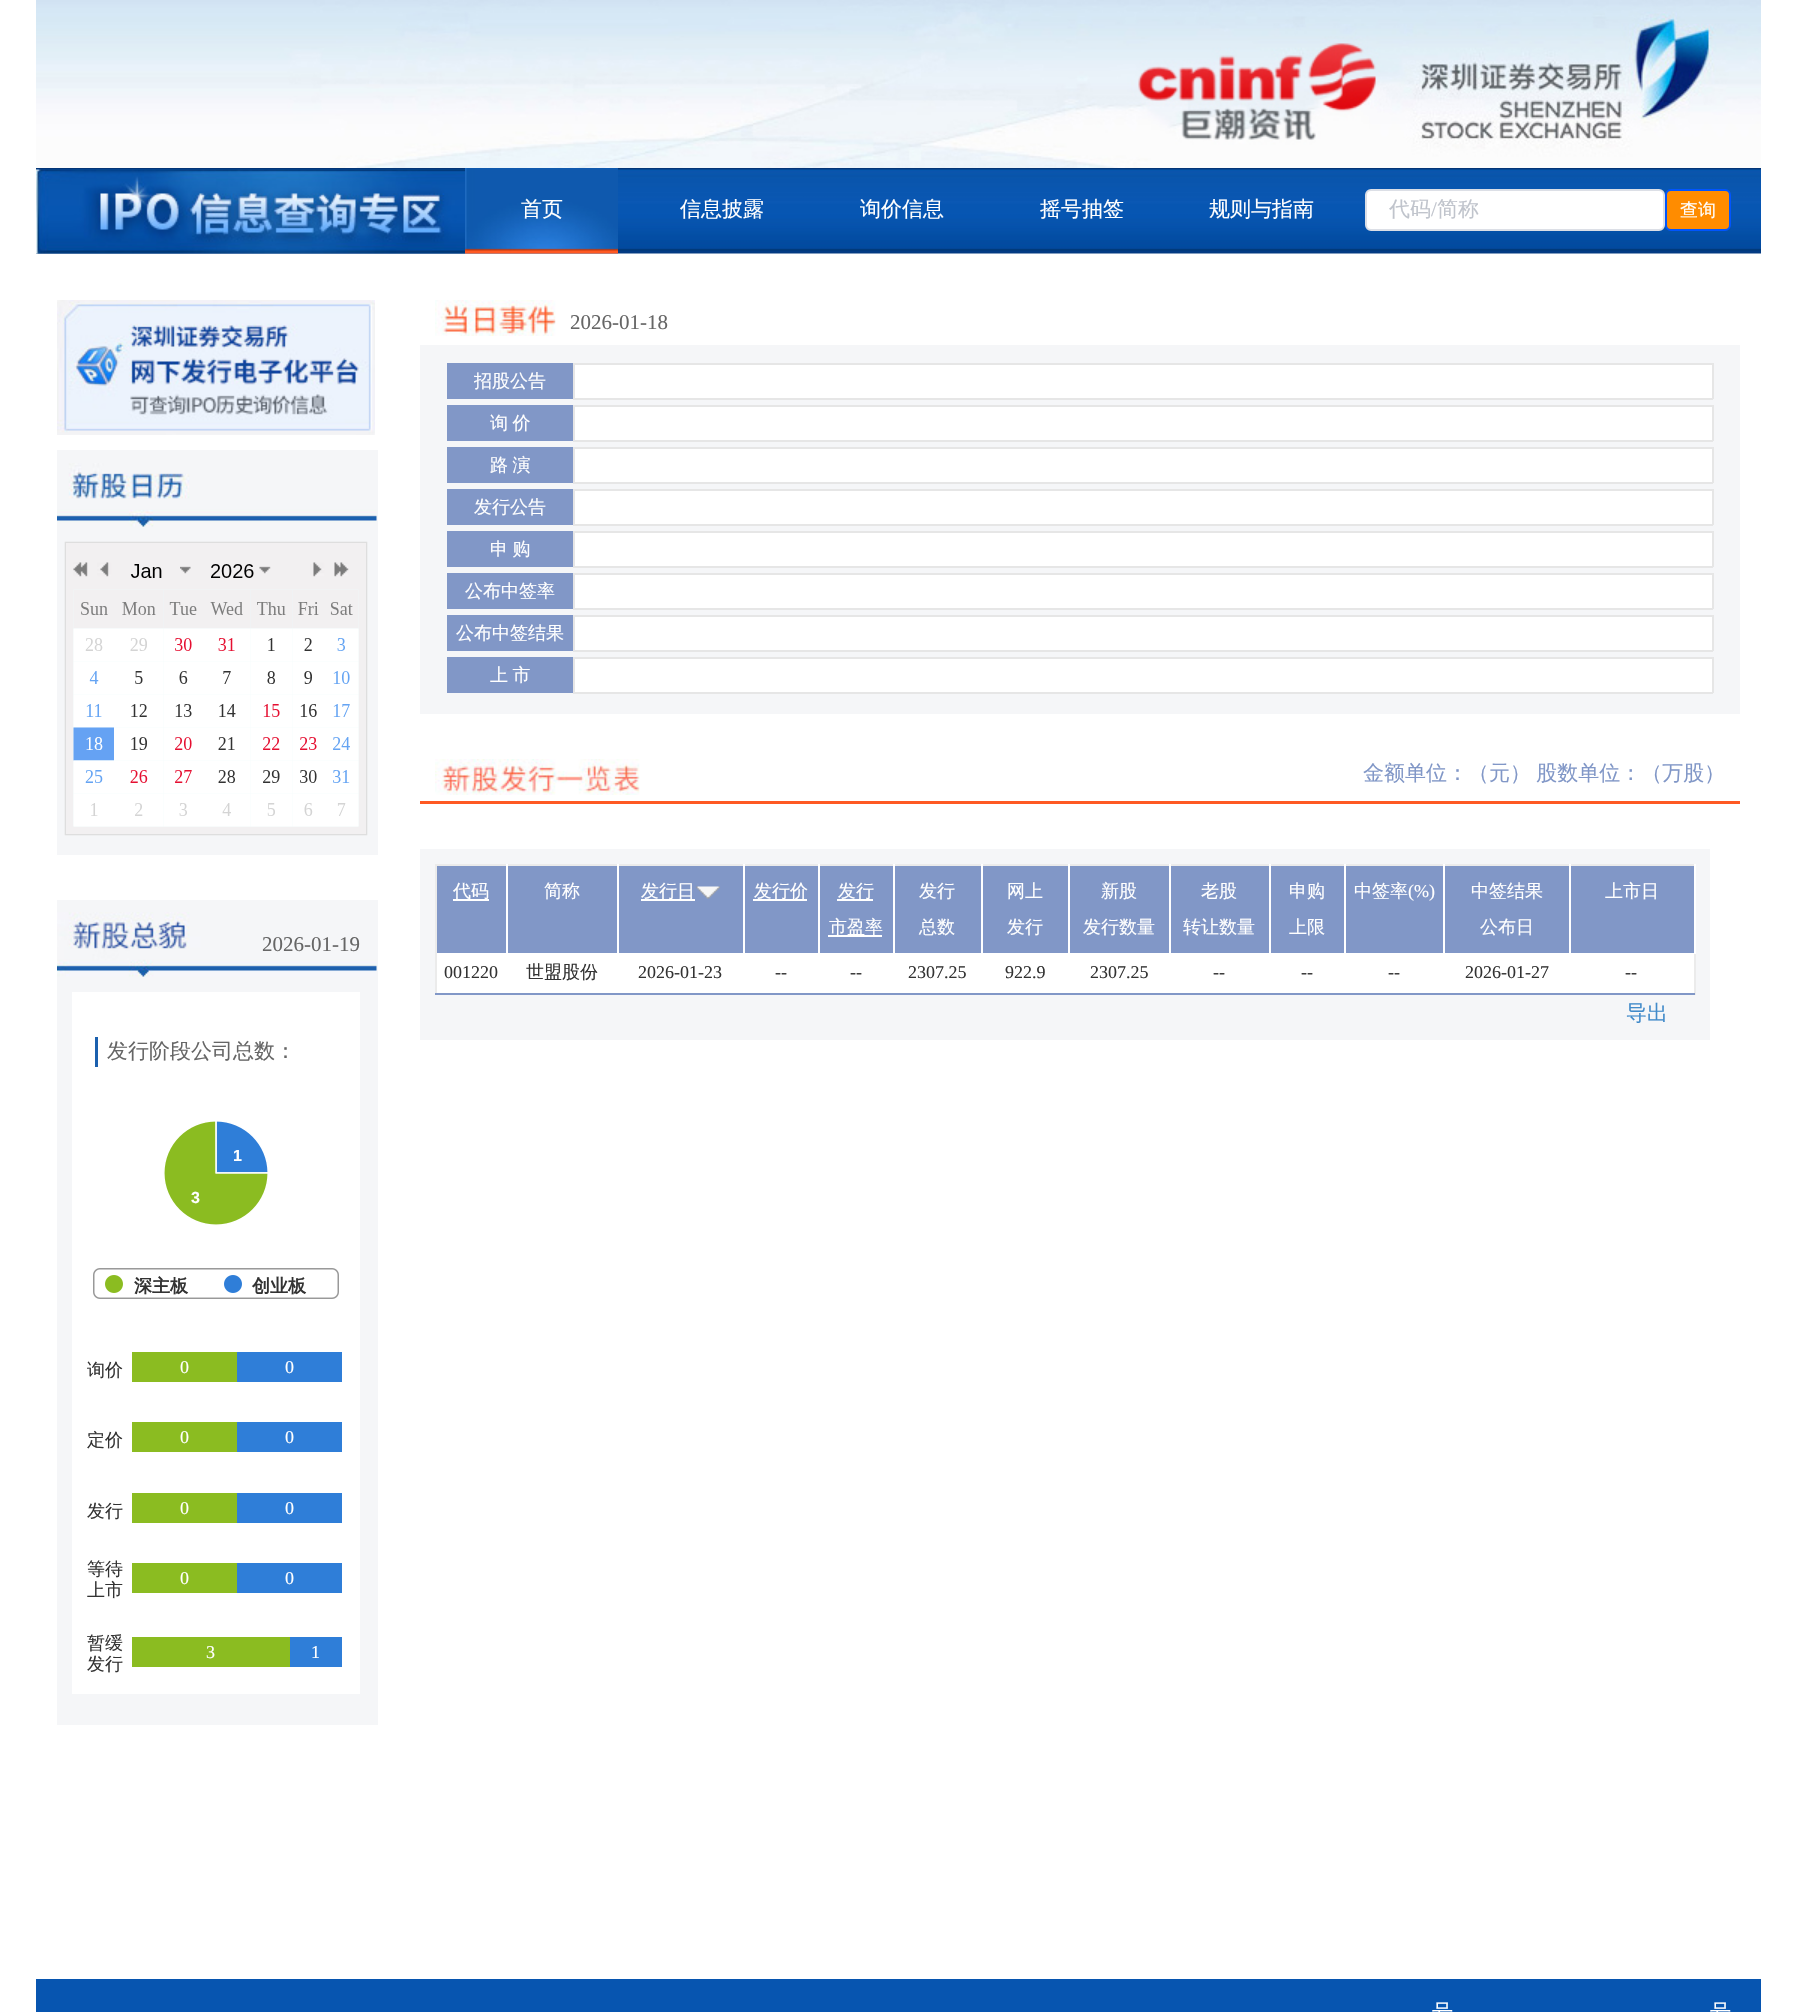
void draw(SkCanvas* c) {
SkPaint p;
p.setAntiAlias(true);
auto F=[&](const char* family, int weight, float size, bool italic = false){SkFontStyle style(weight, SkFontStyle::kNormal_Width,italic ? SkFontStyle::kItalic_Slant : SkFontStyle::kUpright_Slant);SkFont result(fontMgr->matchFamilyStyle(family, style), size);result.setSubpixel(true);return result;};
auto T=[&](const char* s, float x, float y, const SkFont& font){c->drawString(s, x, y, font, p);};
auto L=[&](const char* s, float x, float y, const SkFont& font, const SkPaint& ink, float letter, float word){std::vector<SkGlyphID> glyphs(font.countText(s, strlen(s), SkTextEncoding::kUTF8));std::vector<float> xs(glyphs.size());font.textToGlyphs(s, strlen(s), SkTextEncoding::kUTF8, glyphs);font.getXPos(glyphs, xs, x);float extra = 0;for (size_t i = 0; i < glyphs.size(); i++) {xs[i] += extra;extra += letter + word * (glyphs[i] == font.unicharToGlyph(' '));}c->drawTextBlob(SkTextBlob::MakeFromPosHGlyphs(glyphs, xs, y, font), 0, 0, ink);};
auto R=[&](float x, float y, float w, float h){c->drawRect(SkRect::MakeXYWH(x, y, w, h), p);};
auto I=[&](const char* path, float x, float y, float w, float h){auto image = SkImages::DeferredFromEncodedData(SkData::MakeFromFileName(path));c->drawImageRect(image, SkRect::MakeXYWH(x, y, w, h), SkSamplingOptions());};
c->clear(0xffffffff);
I("1.png",36,0,1725,168);
I("2.png",36,168,1725,86);
I("3.png",36,169,429,85);
I("4.png",465,168,153,86);
auto f1 = F("WenQuanYi Zen Hei",500,21);
p.setColor(0xffffffff);
T("首页",521,216,f1);
T("信息披露",680,216,f1);
T("询价信息",860,216,f1);
T("摇号抽签",1040,216,f1);
T("规则与指南",1209,216,f1);
c->drawRoundRect(SkRect::MakeXYWH(1366,190,298,40),5,5,p);
p.setStroke(true);
p.setStrokeWidth(2);
p.setColor(0xffdcdfe6);
c->drawRoundRect(SkRect::MakeXYWH(1366,190,298,40),5,5,p);
p.setStroke(false);
p.setColor(0xffc0c4cc);
T("代码",1389,216,f1);
auto f2 = F("Liberation Serif",400,21);
T("/",1431,216,f2);
T("简称",1437,216,f1);
p.setColor(0xffff8c00);
c->drawRoundRect(SkRect::MakeXYWH(1666,190,64,40),5,5,p);
p.setStroke(true);
p.setColor(0xff0055ff);
c->drawRoundRect(SkRect::MakeXYWH(1666,190,64,40),5,5,p);
auto f3 = F("WenQuanYi Zen Hei",500,18);
p.setStroke(false);
p.setColor(0xffffffff);
T("查询",1680,216,f3);
I("5.png",435,300,121,36);
p.setColor(0xff666666);
T("2026-01-18",570,329,f2);
p.setColor(0xfff5f6f8);
R(420,345,1320,369);
p.setColor(0xff8197c7);
R(447,363,126,36);
p.setColor(0xffffffff);
T("招股公告",474,387,f3);
R(575,365,1137,33);
p.setColor(0xffe6e6e6);
R(573,363,1140,2);
R(1712,363,2,36);
R(573,398,1140,2);
R(573,363,2,36);
p.setColor(0xff8197c7);
R(447,405,126,36);
p.setColor(0xffffffff);
L("询 价",490,429,f3,p,0,-1);
R(575,407,1137,33);
p.setColor(0xffe6e6e6);
R(573,405,1140,2);
R(1712,405,2,36);
R(573,440,1140,2);
R(573,405,2,36);
p.setColor(0xff8197c7);
R(447,447,126,36);
p.setColor(0xffffffff);
L("路 演",490,471,f3,p,0,-1);
R(575,449,1137,33);
p.setColor(0xffe6e6e6);
R(573,447,1140,2);
R(1712,447,2,36);
R(573,482,1140,2);
R(573,447,2,36);
p.setColor(0xff8197c7);
R(447,489,126,36);
p.setColor(0xffffffff);
T("发行公告",474,513,f3);
R(575,491,1137,33);
p.setColor(0xffe6e6e6);
R(573,489,1140,2);
R(1712,489,2,36);
R(573,524,1140,2);
R(573,489,2,36);
p.setColor(0xff8197c7);
R(447,531,126,36);
p.setColor(0xffffffff);
L("申 购",490,555,f3,p,0,-1);
R(575,533,1137,33);
p.setColor(0xffe6e6e6);
R(573,531,1140,2);
R(1712,531,2,36);
R(573,566,1140,2);
R(573,531,2,36);
p.setColor(0xff8197c7);
R(447,573,126,36);
p.setColor(0xffffffff);
T("公布中签率",465,597,f3);
R(575,575,1137,33);
p.setColor(0xffe6e6e6);
R(573,573,1140,2);
R(1712,573,2,36);
R(573,608,1140,2);
R(573,573,2,36);
p.setColor(0xff8197c7);
R(447,615,126,36);
p.setColor(0xffffffff);
T("公布中签结果",456,639,f3);
R(575,617,1137,33);
p.setColor(0xffe6e6e6);
R(573,615,1140,2);
R(1712,615,2,36);
R(573,650,1140,2);
R(573,615,2,36);
p.setColor(0xff8197c7);
R(447,657,126,36);
p.setColor(0xffffffff);
L("上 市",490,681,f3,p,0,-1);
R(575,659,1137,33);
p.setColor(0xffe6e6e6);
R(573,657,1140,2);
R(1712,657,2,36);
R(573,692,1140,2);
R(573,657,2,36);
I("6.png",435,759,205,36);
p.setColor(0xfffe5923);
R(420,801,1320,3);
p.setColor(0xff8197c7);
L("金额单位：（元） 股数单位：（万股）",1363,780,f1,p,0,-1);
p.setColor(0xfff5f6f8);
R(420,849,1290,191);
p.setColor(0xffffffff);
R(437,953,1257,40);
p.setColor(0xffebebeb);
R(435,864,1260,2);
R(1694,954,2,41);
R(435,864,2,131);
p.setColor(0xff8197c7);
R(437,866,69,87);
p.setColor(0xffffffff);
R(506,864,2,90);
R(453,899,36,2);
T("代码",453,897,f3);
p.setColor(0xff8197c7);
R(508,866,109,87);
p.setColor(0xffffffff);
R(617,864,2,90);
T("简称",544,897,f3);
p.setColor(0xff8197c7);
R(619,866,124,87);
p.setColor(0xffffffff);
R(743,864,2,90);
R(641,899,54,2);
T("发行日",641,897,f3);
I("7.png",695,886,25,13);
p.setColor(0xff8197c7);
R(745,866,73,87);
p.setColor(0xffffffff);
R(818,864,2,90);
R(753,899,54,2);
T("发行价",754,897,f3);
p.setColor(0xff8197c7);
R(820,866,73,87);
p.setColor(0xffffffff);
R(893,864,2,90);
R(837,899,36,2);
T("发行",838,897,f3);
R(828,935,54,2);
T("市盈率",829,933,f3);
p.setColor(0xff8197c7);
R(895,866,86,87);
p.setColor(0xffffffff);
R(981,864,2,90);
T("发行",919,897,f3);
T("总数",919,933,f3);
p.setColor(0xff8197c7);
R(983,866,85,87);
p.setColor(0xffffffff);
R(1068,864,2,90);
T("网上",1007,897,f3);
T("发行",1007,933,f3);
p.setColor(0xff8197c7);
R(1070,866,99,87);
p.setColor(0xffffffff);
R(1169,864,2,90);
T("新股",1101,897,f3);
T("发行数量",1083,933,f3);
p.setColor(0xff8197c7);
R(1171,866,98,87);
p.setColor(0xffffffff);
R(1269,864,2,90);
T("老股",1201,897,f3);
T("转让数量",1183,933,f3);
p.setColor(0xff8197c7);
R(1271,866,73,87);
p.setColor(0xffffffff);
R(1344,864,2,90);
T("申购",1289,897,f3);
T("上限",1289,933,f3);
p.setColor(0xff8197c7);
R(1346,866,97,87);
p.setColor(0xffffffff);
R(1443,864,2,90);
T("中签率",1354,897,f3);
auto f4 = F("Liberation Serif",400,18);
T("(%)",1408,897,f4);
p.setColor(0xff8197c7);
R(1445,866,124,87);
p.setColor(0xffffffff);
R(1569,864,2,90);
T("中签结果",1471,897,f3);
T("公布日",1480,933,f3);
p.setColor(0xff8197c7);
R(1571,866,123,87);
p.setColor(0xffffffff);
R(1694,864,2,90);
T("上市日",1605,897,f3);
p.setColor(0xff333333);
T("001220",444,978,f4);
T("世盟股份",526,978,f3);
T("2026-01-23",638,978,f4);
T("--",775,978,f4);
T("--",850,978,f4);
T("2307.25",908,978,f4);
T("922.9",1005,978,f4);
T("2307.25",1090,978,f4);
T("--",1213,978,f4);
T("--",1301,978,f4);
T("--",1388,978,f4);
T("2026-01-27",1465,978,f4);
p.setColor(0xff8197c7);
R(435,993,1260,2);
p.setColor(0xff333333);
T("--",1625,978,f4);
p.setColor(0xff428bca);
T("导出",1626,1020,f1);
I("8.png",57,300,318,135);
p.setColor(0xfff5f6f8);
R(57,450,321,405);
I("9.png",57,463,320,64);
I("10.png",64,541,304,295);
R(57,900,321,825);
I("11.png",57,912,320,65);
p.setColor(0xff666666);
T("2026-01-19",262,951,f2);
p.setColor(0xffffffff);
R(72,992,288,702);
p.setColor(0xff1b60ae);
R(95,1037,3,30);
p.setColor(0xff666666);
T("发行阶段公司总数：",107,1058,f1);
I("12.png",93,1121,246,178);
auto f5 = F("Liberation Sans",700,16);
p.setColor(0xffffffff);
T("1",233,1161,f5);
T("3",191,1203,f5);
auto f6 = F("WenQuanYi Zen Hei",700,18);
p.setColor(0xff333333);
T("深主板",134,1292,f6);
T("创业板",252,1292,f6);
T("询价",87,1376,f3);
p.setColor(0xff8bbc21);
R(132,1352,105,30);
p.setColor(0xffffffff);
T("0",180,1373,f4);
p.setColor(0xff2f7ed8);
R(237,1352,105,30);
p.setColor(0xffffffff);
T("0",285,1373,f4);
p.setColor(0xff333333);
T("定价",87,1446,f3);
p.setColor(0xff8bbc21);
R(132,1422,105,30);
p.setColor(0xffffffff);
T("0",180,1443,f4);
p.setColor(0xff2f7ed8);
R(237,1422,105,30);
p.setColor(0xffffffff);
T("0",285,1443,f4);
p.setColor(0xff333333);
T("发行",87,1517,f3);
p.setColor(0xff8bbc21);
R(132,1493,105,30);
p.setColor(0xffffffff);
T("0",180,1514,f4);
p.setColor(0xff2f7ed8);
R(237,1493,105,30);
p.setColor(0xffffffff);
T("0",285,1514,f4);
p.setColor(0xff333333);
T("等待",87,1575,f3);
T("上市",87,1596,f3);
p.setColor(0xff8bbc21);
R(132,1563,105,30);
p.setColor(0xffffffff);
T("0",180,1584,f4);
p.setColor(0xff2f7ed8);
R(237,1563,105,30);
p.setColor(0xffffffff);
T("0",285,1584,f4);
p.setColor(0xff333333);
T("暂缓",87,1649,f3);
T("发行",87,1670,f3);
p.setColor(0xff8bbc21);
R(132,1637,158,30);
p.setColor(0xffffffff);
T("3",206,1658,f4);
p.setColor(0xff2f7ed8);
R(290,1637,52,30);
p.setColor(0xffffffff);
T("1",311,1658,f4);
p.setColor(0xff0755b0);
R(36,1979,1725,33);
p.setColor(0xffffffff);
T("号",1432,2019,f1);
T("号",1710,2019,f1);
}
